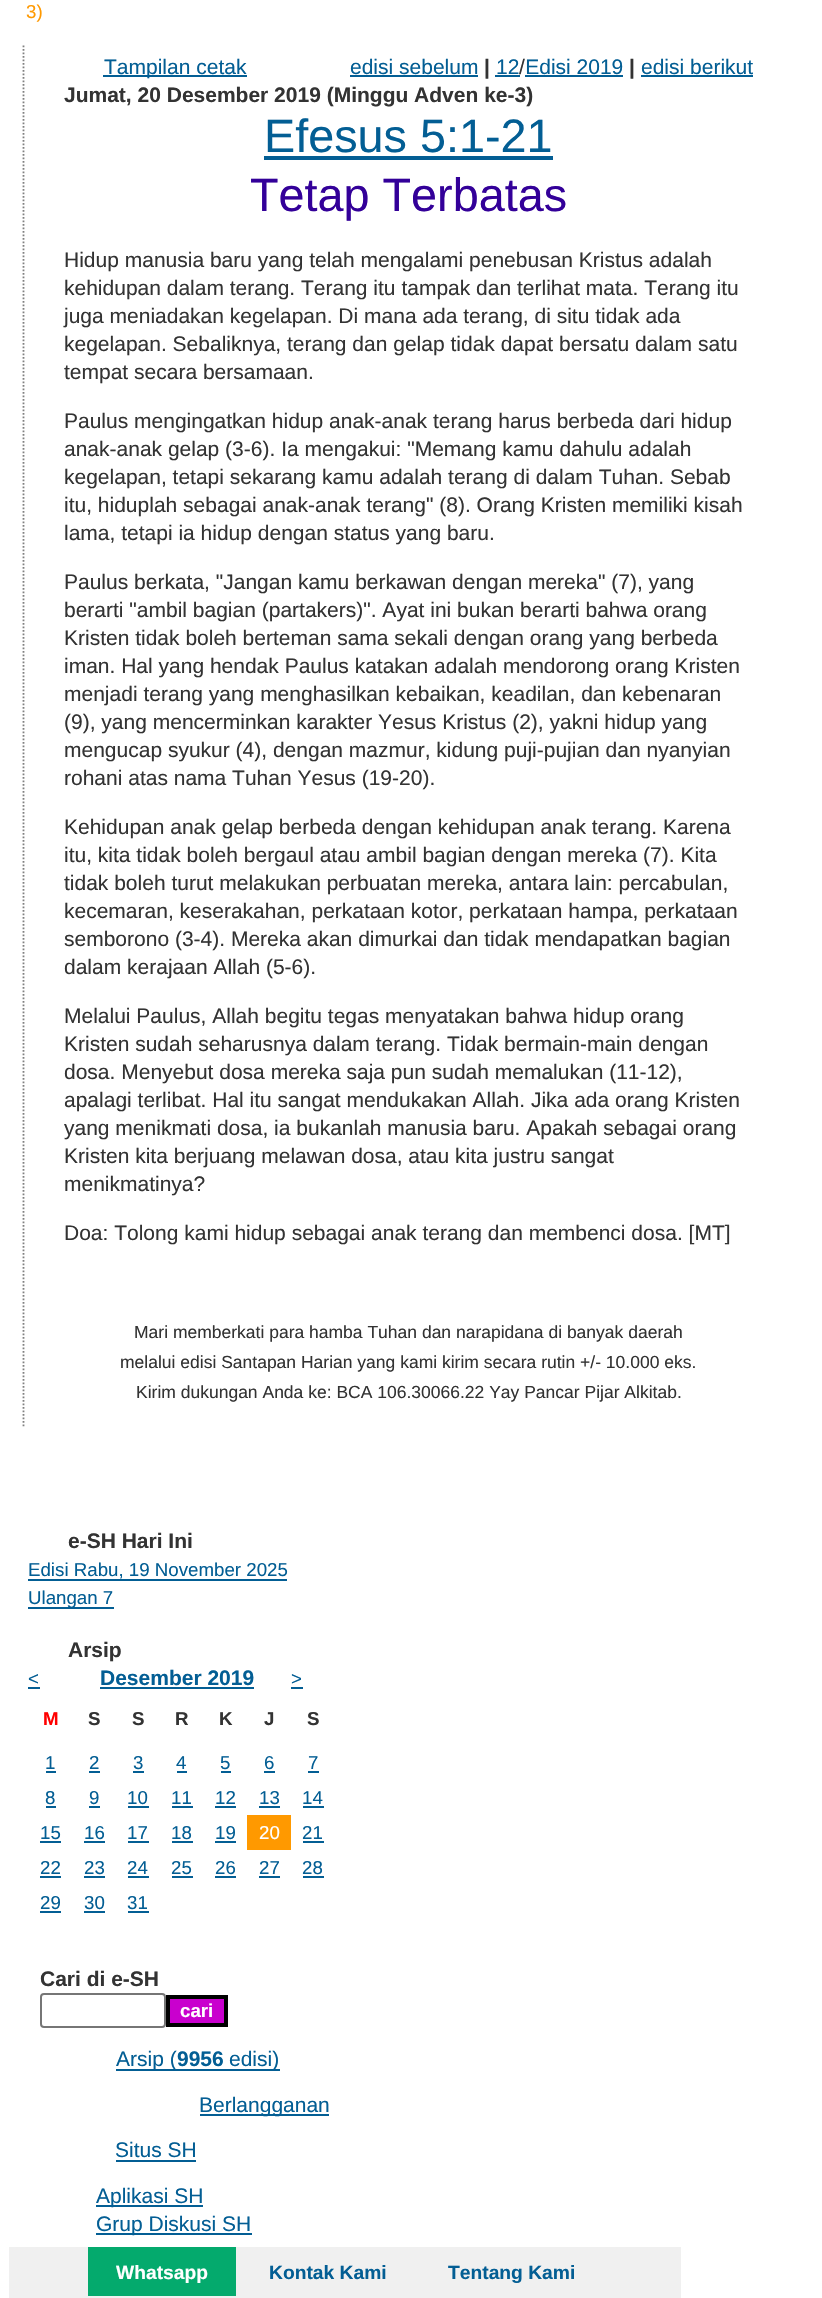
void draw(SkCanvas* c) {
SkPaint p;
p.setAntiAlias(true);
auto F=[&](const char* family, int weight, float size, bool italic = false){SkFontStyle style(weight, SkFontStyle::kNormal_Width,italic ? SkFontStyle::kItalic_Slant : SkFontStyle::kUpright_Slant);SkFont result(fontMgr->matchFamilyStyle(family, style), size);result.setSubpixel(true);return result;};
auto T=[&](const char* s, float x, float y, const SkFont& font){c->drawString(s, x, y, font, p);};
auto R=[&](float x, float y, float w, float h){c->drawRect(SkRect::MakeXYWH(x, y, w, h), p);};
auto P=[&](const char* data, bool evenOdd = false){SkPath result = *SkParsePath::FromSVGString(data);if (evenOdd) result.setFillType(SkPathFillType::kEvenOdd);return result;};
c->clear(0xffffffff);
auto f1 = F("Liberation Sans",400,18.7);
p.setColor(0xffff9900);
T("3)",26,18,f1);
p.setStroke(true);
p.setStrokeWidth(1.8);
p.setColor(0xff808080);
p.setPathEffect(SkDashPathEffect::Make({{1.75f,1.75f}}, 0));
c->drawPath(P("M23.5 45.5v1382.5"),p);
p.setPathEffect(nullptr);
p.setStroke(false);
p.setColor(0xff035e94);
R(103,75,144,2);
auto f2 = F("Liberation Sans",400,21);
T("Tampilan cetak",104,74,f2);
T("edisi sebelum",350,74,f2);
R(350,75,128,2);
auto f3 = F("Liberation Sans",700,21);
p.setColor(0xff333333);
T("|",484,74,f3);
p.setColor(0xff035e94);
T("12 Edisi 2019",496,74,f2);
R(495,75,25,2);
p.setColor(0xff333333);
T("/",519,74,f2);
T("|",629,74,f3);
p.setColor(0xff035e94);
T("edisi berikut",641,74,f2);
R(641,75,112,2);
R(525,75,98,2);
p.setColor(0xff333333);
T("Jumat, 20 Desember 2019 (Minggu Adven ke-3)",64,102,f3);
auto f4 = F("Liberation Sans",400,46.75);
p.setColor(0xff035e94);
T("Efesus 5:1-21",264,152,f4);
R(264,156,289,4);
p.setColor(0xff330099);
T("Tetap Terbatas",250,211,f4);
p.setColor(0xff333333);
T("Hidup manusia baru yang telah mengalami penebusan Kristus adalah",64,267,f2);
T("kehidupan dalam terang. Terang itu tampak dan terlihat mata. Terang itu",64,295,f2);
T("juga meniadakan kegelapan. Di mana ada terang, di situ tidak ada",64,323,f2);
T("kegelapan. Sebaliknya, terang dan gelap tidak dapat bersatu dalam satu",64,351,f2);
T("tempat secara bersamaan.",64,379,f2);
T("Paulus mengingatkan hidup anak-anak terang harus berbeda dari hidup",64,428,f2);
T("anak-anak gelap (3-6). Ia mengakui: \"Memang kamu dahulu adalah",64,456,f2);
T("kegelapan, tetapi sekarang kamu adalah terang di dalam Tuhan. Sebab",64,484,f2);
T("itu, hiduplah sebagai anak-anak terang\" (8). Orang Kristen memiliki kisah",64,512,f2);
T("lama, tetapi ia hidup dengan status yang baru.",64,540,f2);
T("Paulus berkata, \"Jangan kamu berkawan dengan mereka\" (7), yang",64,589,f2);
T("berarti \"ambil bagian (partakers)\". Ayat ini bukan berarti bahwa orang",64,617,f2);
T("Kristen tidak boleh berteman sama sekali dengan orang yang berbeda",64,645,f2);
T("iman. Hal yang hendak Paulus katakan adalah mendorong orang Kristen",64,673,f2);
T("menjadi terang yang menghasilkan kebaikan, keadilan, dan kebenaran",64,701,f2);
T("(9), yang mencerminkan karakter Yesus Kristus (2), yakni hidup yang",64,729,f2);
T("mengucap syukur (4), dengan mazmur, kidung puji-pujian dan nyanyian",64,757,f2);
T("rohani atas nama Tuhan Yesus (19-20).",64,785,f2);
T("Kehidupan anak gelap berbeda dengan kehidupan anak terang. Karena",64,834,f2);
T("itu, kita tidak boleh bergaul atau ambil bagian dengan mereka (7). Kita",64,862,f2);
T("tidak boleh turut melakukan perbuatan mereka, antara lain: percabulan,",64,890,f2);
T("kecemaran, keserakahan, perkataan kotor, perkataan hampa, perkataan",64,918,f2);
T("semborono (3-4). Mereka akan dimurkai dan tidak mendapatkan bagian",64,946,f2);
T("dalam kerajaan Allah (5-6).",64,974,f2);
T("Melalui Paulus, Allah begitu tegas menyatakan bahwa hidup orang",64,1023,f2);
T("Kristen sudah seharusnya dalam terang. Tidak bermain-main dengan",64,1051,f2);
T("dosa. Menyebut dosa mereka saja pun sudah memalukan (11-12),",64,1079,f2);
T("apalagi terlibat. Hal itu sangat mendukakan Allah. Jika ada orang Kristen",64,1107,f2);
T("yang menikmati dosa, ia bukanlah manusia baru. Apakah sebagai orang",64,1135,f2);
T("Kristen kita berjuang melawan dosa, atau kita justru sangat",64,1163,f2);
T("menikmatinya?",64,1191,f2);
T("Doa: Tolong kami hidup sebagai anak terang dan membenci dosa. [MT]",64,1240,f2);
auto f5 = F("Liberation Sans",400,17.5);
T("Mari memberkati para hamba Tuhan dan narapidana di banyak daerah",134,1338,f5);
T("melalui edisi Santapan Harian yang kami kirim secara rutin +/- 10.000 eks.",120,1368,f5);
T("Kirim dukungan Anda ke: BCA 106.30066.22 Yay Pancar Pijar Alkitab.",136,1398,f5);
T("e-SH Hari Ini",68,1548,f3);
p.setColor(0xff035e94);
T("Edisi Rabu, 19 November 2025",28,1576,f1);
R(28,1579,259,2);
R(28,1607,86,2);
T("Ulangan 7",28,1604,f1);
p.setColor(0xff333333);
T("Arsip",68,1657,f3);
p.setColor(0xff035e94);
T("<",28,1685,f1);
R(28,1687,12,2);
T("Desember 2019",100,1685,f3);
R(100,1687,154,2);
T(">",291,1685,f1);
R(291,1687,12,2);
auto f6 = F("Liberation Sans",700,18.7);
p.setColor(0xffff0000);
T("M",43,1725,f6);
p.setColor(0xff333333);
T("S",88,1725,f6);
T("S",132,1725,f6);
T("R",175,1725,f6);
T("K",219,1725,f6);
T("J",264,1725,f6);
T("S",307,1725,f6);
p.setColor(0xff035e94);
T("1",45,1769,f1);
R(46,1771,10,2);
T("2",89,1769,f1);
R(89,1771,11,2);
T("3",133,1769,f1);
R(133,1771,11,2);
T("4",176,1769,f1);
R(177,1771,10,2);
T("5",220,1769,f1);
R(221,1771,10,2);
T("6",264,1769,f1);
R(264,1771,11,2);
T("7",308,1769,f1);
R(308,1771,11,2);
T("8",45,1804,f1);
R(46,1806,10,2);
T("9",89,1804,f1);
R(89,1806,11,2);
T("10",127,1804,f1);
R(128,1806,21,2);
T("11",171,1804,f1);
R(172,1806,21,2);
T("12",215,1804,f1);
R(215,1806,21,2);
T("13",259,1804,f1);
R(259,1806,21,2);
T("14",302,1804,f1);
R(303,1806,21,2);
T("15",40,1839,f1);
R(40,1841,21,2);
T("16",84,1839,f1);
R(84,1841,21,2);
T("17",127,1839,f1);
R(128,1841,21,2);
T("18",171,1839,f1);
R(172,1841,21,2);
T("19",215,1839,f1);
R(215,1841,21,2);
p.setColor(0xffff9900);
R(247,1815,44,35);
p.setColor(0xffffffff);
T("20",259,1839,f1);
p.setColor(0xff035e94);
T("21",302,1839,f1);
R(303,1841,21,2);
T("22",40,1874,f1);
R(40,1876,21,2);
T("23",84,1874,f1);
R(84,1876,21,2);
T("24",127,1874,f1);
R(128,1876,21,2);
T("25",171,1874,f1);
R(172,1876,21,2);
T("26",215,1874,f1);
R(215,1876,21,2);
T("27",259,1874,f1);
R(259,1876,21,2);
T("28",302,1874,f1);
R(303,1876,21,2);
T("29",40,1909,f1);
R(40,1911,21,2);
T("30",84,1909,f1);
R(84,1911,21,2);
T("31",127,1909,f1);
R(128,1911,21,2);
p.setColor(0xff333333);
T("Cari di e-SH",40,1986,f3);
p.setStroke(true);
p.setStrokeWidth(2);
p.setColor(0xff767676);
c->drawRoundRect(SkRect::MakeXYWH(41,1994,124,33),3,3,p);
p.setStroke(false);
p.setColor(0xffc900ce);
c->drawRect(SkRect::MakeXYWH(168,1997,58,28),p);
p.setStroke(true);
p.setStrokeWidth(4);
p.setColor(0xff000000);
c->drawRect(SkRect::MakeXYWH(168,1997,58,28),p);
p.setStroke(false);
p.setColor(0xffffffff);
T("cari",180,2017,f6);
p.setColor(0xff035e94);
R(116,2069,164,2);
T("Arsip (",116,2066,f2);
T("9956",177,2066,f3);
T("edisi)",229,2066,f2);
R(200,2114,129,2);
T("Berlangganan",199,2112,f2);
T("Situs SH",115,2157,f2);
R(116,2160,80,2);
R(96,2205,107,2);
T("Aplikasi SH",96,2203,f2);
R(96,2233,156,2);
T("Grup Diskusi SH",96,2231,f2);
p.setColor(0xfff0f0f0);
R(9,2247,672,51);
p.setColor(0xff04aa6d);
R(88,2247,148,49);
auto f7 = F("Liberation Sans",700,19.25);
p.setColor(0xffffffff);
T("Whatsapp",116,2279,f7);
p.setColor(0xff035e94);
T("Kontak Kami",269,2279,f7);
T("Tentang Kami",448,2279,f7);
}
